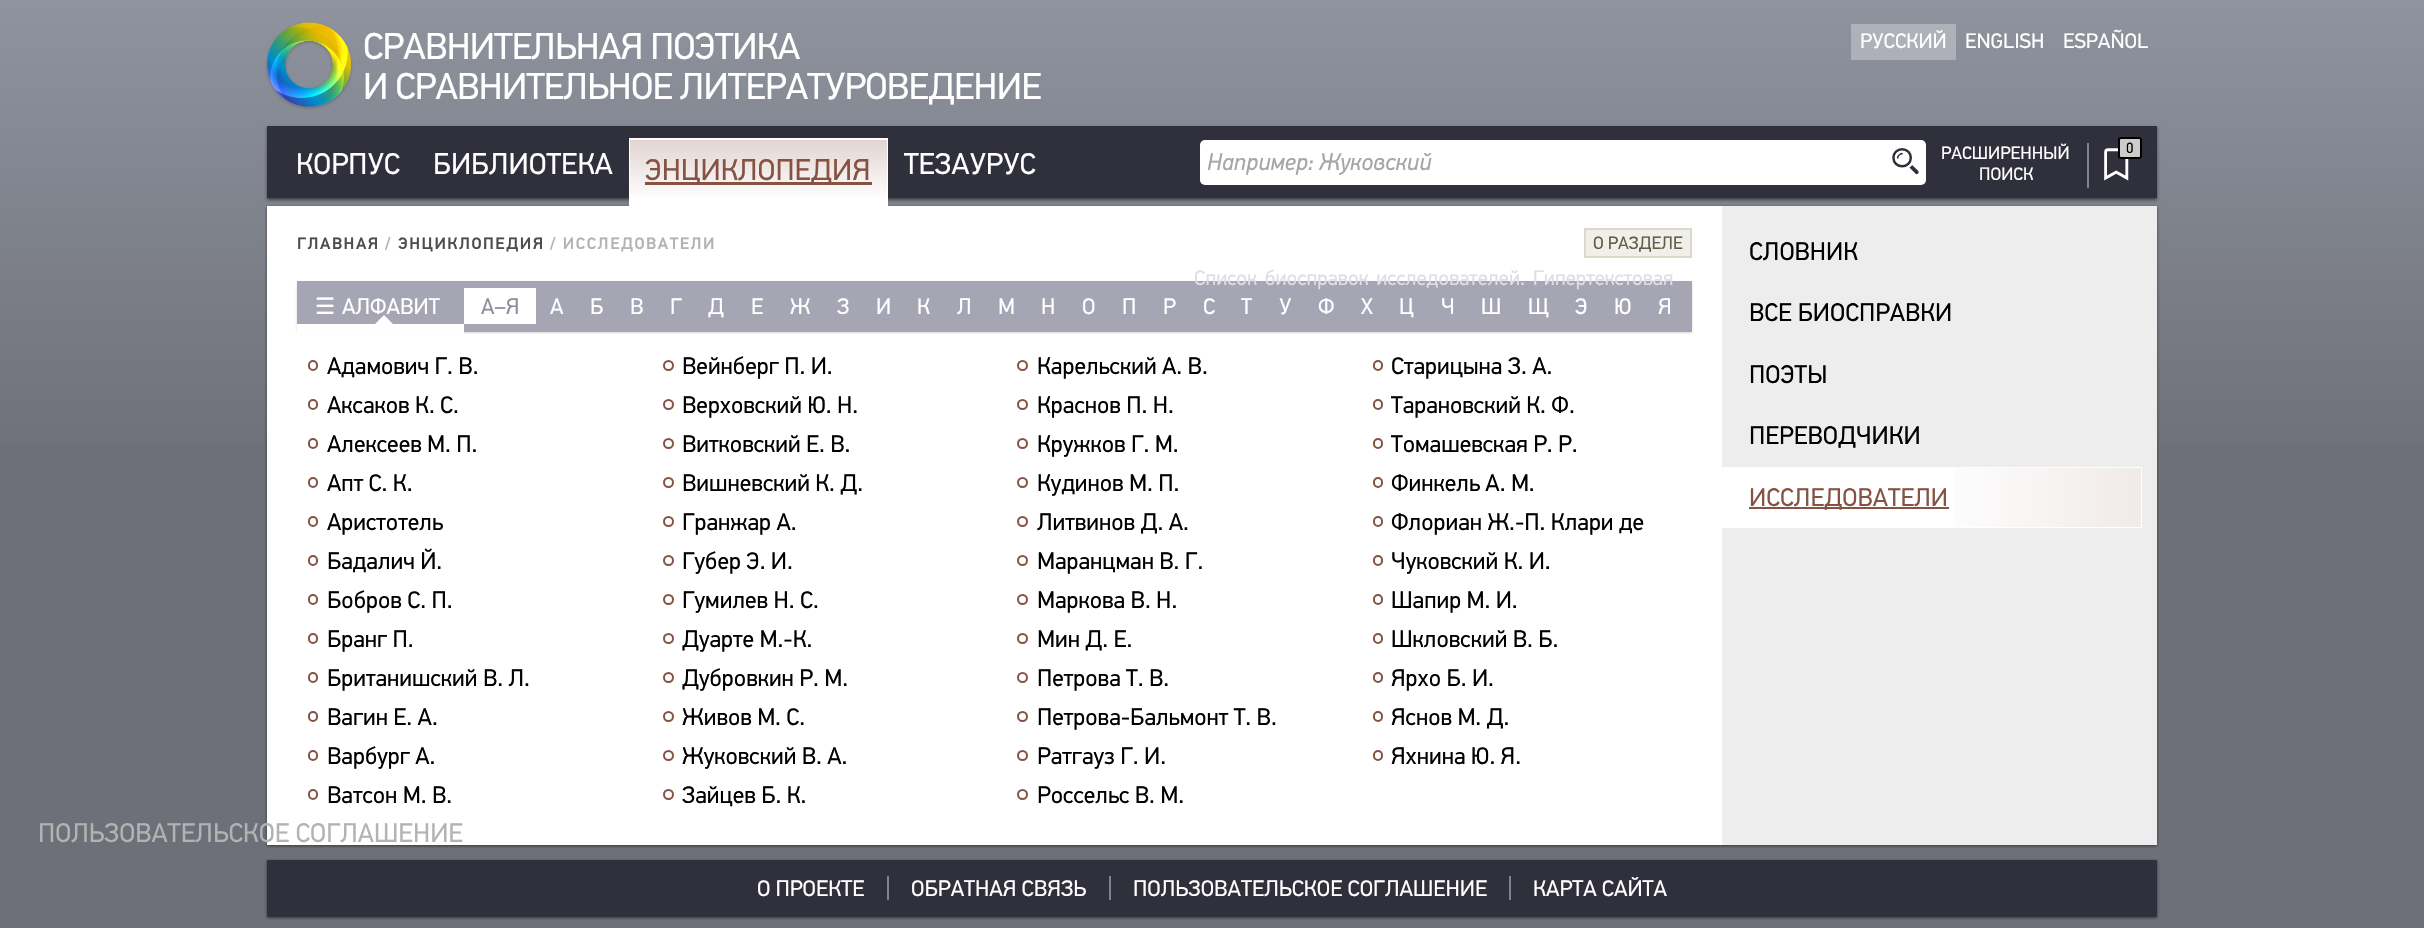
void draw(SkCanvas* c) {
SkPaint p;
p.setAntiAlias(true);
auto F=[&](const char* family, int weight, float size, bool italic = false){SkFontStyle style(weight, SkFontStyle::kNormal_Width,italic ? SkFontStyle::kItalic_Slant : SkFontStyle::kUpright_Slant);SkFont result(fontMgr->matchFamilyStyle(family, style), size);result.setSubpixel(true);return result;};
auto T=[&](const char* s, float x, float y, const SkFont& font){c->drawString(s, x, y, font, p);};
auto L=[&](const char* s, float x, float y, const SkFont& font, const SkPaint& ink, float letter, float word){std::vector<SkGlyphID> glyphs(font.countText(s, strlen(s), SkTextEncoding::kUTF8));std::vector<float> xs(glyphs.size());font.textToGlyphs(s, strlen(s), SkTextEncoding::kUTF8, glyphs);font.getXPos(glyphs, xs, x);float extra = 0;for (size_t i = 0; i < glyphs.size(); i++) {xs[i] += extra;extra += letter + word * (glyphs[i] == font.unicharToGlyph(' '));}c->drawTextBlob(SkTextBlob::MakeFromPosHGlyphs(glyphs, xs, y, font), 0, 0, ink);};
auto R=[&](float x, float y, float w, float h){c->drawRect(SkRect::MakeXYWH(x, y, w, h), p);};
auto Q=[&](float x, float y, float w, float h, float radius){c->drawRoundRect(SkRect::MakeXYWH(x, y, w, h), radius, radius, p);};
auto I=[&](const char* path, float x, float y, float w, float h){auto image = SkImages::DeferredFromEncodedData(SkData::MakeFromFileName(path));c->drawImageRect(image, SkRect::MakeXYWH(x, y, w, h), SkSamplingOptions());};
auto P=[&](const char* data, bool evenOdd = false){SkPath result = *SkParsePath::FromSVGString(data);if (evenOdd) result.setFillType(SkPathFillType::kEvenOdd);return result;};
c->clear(0xff6d7078);
{
const SkColor colors[] = {0xff8e939e,0xff6e7078};
const float stops[] = {0,1};
const SkPoint ends[] = {{1212,0}, {1212,465}};
p.setShader(SkGradientShader::MakeLinear(ends, colors, stops, 2, SkTileMode::kClamp));
p.setAlpha(255);
}
R(0,0,2424,443);
{
const SkColor colors[] = {0xffb0b3bb,0xff9a9ba1};
const float stops[] = {0,1};
const SkPoint ends[] = {{1212,0}, {1212,465}};
p.setShader(SkGradientShader::MakeLinear(ends, colors, stops, 2, SkTileMode::kClamp));
p.setAlpha(255);
}
R(1851,24,105,36);
I("1.png",265,22,88,88);
auto f1 = F("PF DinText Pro",400,37.5);
p.setShader(nullptr);
p.setColor(0xffffffff);
L("СРАВНИТЕЛЬНАЯ ПОЭТИКА",363,59,f1,p,-.75,0);
L("И СРАВНИТЕЛЬНОЕ ЛИТЕРАТУРОВЕДЕНИЕ",363,99,f1,p,-.75,0);
auto f2 = F("PF DinText Pro",400,21);
T("РУССКИЙ",1860,48,f2);
T("ENGLISH",1965,48,f2);
T("ESPAÑOL",2063,48,f2);
p.setColor(0x80000000);
p.setMaskFilter(SkMaskFilter::MakeBlur(kNormal_SkBlurStyle, 1.5));
c->drawRect(SkRect::MakeXYWH(267,128,1890,72),p);
p.setMaskFilter(nullptr);
p.setColor(0xff30303d);
R(267,126,1890,72);
auto f3 = F("PF DinText Pro",400,30);
p.setColor(0xffffffff);
T("КОРПУС",296,174,f3);
T("БИБЛИОТЕКА",433,174,f3);
p.setColor(0x80000000);
p.setMaskFilter(SkMaskFilter::MakeBlur(kNormal_SkBlurStyle, 1.5));
c->drawRect(SkRect::MakeXYWH(267,207,1890,639),p);
p.setMaskFilter(nullptr);
p.setColor(0xffffffff);
R(629,138,259,68);
{
const SkColor colors[] = {0xffe1d4d0,0xffffffff};
const float stops[] = {0,1};
const SkPoint ends[] = {{758,139}, {758,201}};
p.setShader(SkGradientShader::MakeLinear(ends, colors, stops, 2, SkTileMode::kClamp));
p.setAlpha(255);
}
R(630,140,257,58);
p.setShader(nullptr);
p.setColor(0xff855243);
R(645,182,227,3);
T("ЭНЦИКЛОПЕДИЯ",645,180,f3);
p.setColor(0xffffffff);
T("ТЕЗАУРУС",904,174,f3);
Q(1200,140,726,45,5);
auto f4 = F("PF DinText Pro",400,24,true);
p.setColor(0xffa6a6a6);
T("Например: Жуковский",1207,170,f4);
I("2.png",1892,148,27,27);
p.setColor(0xff83838b);
R(2087,143,2,45);
auto f5 = F("PF DinText Pro",400,18);
p.setColor(0xffffffff);
T("РАСШИРЕННЫЙ",1941,159,f5);
T("ПОИСК",1979,180,f5);
I("3.png",2104,148,25,33);
p.setColor(0xffcccccc);
c->drawRoundRect(SkRect::MakeXYWH(2119,138,22,20),2,2,p);
p.setStroke(true);
p.setStrokeWidth(2);
p.setColor(0xff000000);
c->drawRoundRect(SkRect::MakeXYWH(2119,138,22,20),2,2,p);
auto f6 = F("PF DinText Pro",400,15);
p.setStroke(false);
T("0",2126,153,f6);
p.setColor(0xffffffff);
R(267,206,1455,639);
p.setColor(0xffededed);
R(1722,206,435,639);
auto f7 = F("PF DinText Pro",500,16.5);
p.setColor(0xff4d4d4d);
L("ГЛАВНАЯ",297,249,f7,p,1.5,0);
p.setColor(0xffb3b3b3);
L("/",385,249,f7,p,1.5,0);
p.setColor(0xff4d4d4d);
L("ЭНЦИКЛОПЕДИЯ",398,249,f7,p,1.5,0);
p.setColor(0xffb3b3b3);
L("/ ИССЛЕДОВАТЕЛИ",550,249,f7,p,1.5,0);
p.setColor(0xfff0efea);
c->drawRect(SkRect::MakeXYWH(1585,229,106,28),p);
p.setStroke(true);
p.setColor(0xffdbd8cc);
c->drawRect(SkRect::MakeXYWH(1585,229,106,28),p);
p.setStroke(false);
p.setColor(0xff625d46);
T("О РАЗДЕЛЕ",1593,249,f5);
c->save();
c->clipPath(P("M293 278h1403v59h-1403zm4 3h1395v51h-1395z",true),true);
p.setColor(0x33333333);
p.setMaskFilter(SkMaskFilter::MakeBlur(kNormal_SkBlurStyle, 1));
c->drawRect(SkRect::MakeXYWH(297,282,1395,51),p);
p.setMaskFilter(nullptr);
c->restore();
p.setColor(0xcc8e8ea1);
R(297,281,1395,51);
p.setColor(0xffdedee4);
L("Список биосправок исследователей. Гипертекстовая",1194,285,f2,p,0,3);
auto f8 = F("DejaVu Sans",400,22.5);
p.setColor(0xffffffff);
T("☰",315,314,f8);
auto f9 = F("PF DinText Pro",400,22.5);
T("АЛФАВИТ",342,314,f9);
R(297,324,167,10);
c->drawPath(P("M393 324h-18l9-9z"),p);
R(464,288,72,36);
p.setColor(0xff8e8ea1);
T("А–Я",481,314,f9);
p.setColor(0xffffffff);
T("А",550,314,f9);
T("Б",590,314,f9);
T("В",630,314,f9);
T("Г",670,314,f9);
T("Д",708,314,f9);
T("Е",751,314,f9);
T("Ж",790,314,f9);
T("З",837,314,f9);
T("И",876,314,f9);
T("К",917,314,f9);
T("Л",957,314,f9);
T("М",998,314,f9);
T("Н",1041,314,f9);
T("О",1082,314,f9);
T("П",1122,314,f9);
T("Р",1163,314,f9);
T("С",1203,314,f9);
T("Т",1241,314,f9);
T("У",1279,314,f9);
T("Ф",1318,314,f9);
T("Х",1361,314,f9);
T("Ц",1399,314,f9);
T("Ч",1441,314,f9);
T("Ш",1481,314,f9);
T("Щ",1528,314,f9);
T("Э",1575,314,f9);
T("Ю",1614,314,f9);
T("Я",1658,314,f9);
p.setStroke(true);
p.setColor(0xff855243);
c->drawRoundRect(SkRect::MakeXYWH(309,361,8,9),4,4,p);
auto f10 = F("PF DinText Pro",400,24);
p.setStroke(false);
p.setColor(0xff000000);
T("Адамович Г. В.",327,374,f10);
p.setStroke(true);
p.setColor(0xff855243);
c->drawCircle(668.5,365.5,4.5,p);
p.setStroke(false);
p.setColor(0xff000000);
T("Вейнберг П. И.",682,374,f10);
p.setStroke(true);
p.setColor(0xff855243);
c->drawCircle(1022.5,365.5,4.5,p);
p.setStroke(false);
p.setColor(0xff000000);
T("Карельский А. В.",1037,374,f10);
p.setStroke(true);
p.setColor(0xff855243);
c->drawRoundRect(SkRect::MakeXYWH(1374,361,8,9),4,4,p);
p.setStroke(false);
p.setColor(0xff000000);
T("Старицына З. А.",1391,374,f10);
p.setStroke(true);
p.setColor(0xff855243);
c->drawRoundRect(SkRect::MakeXYWH(309,400,8,9),4,4,p);
p.setStroke(false);
p.setColor(0xff000000);
T("Аксаков К. С.",327,413,f10);
p.setStroke(true);
p.setColor(0xff855243);
c->drawCircle(668.5,404.5,4.5,p);
p.setStroke(false);
p.setColor(0xff000000);
T("Верховский Ю. Н.",682,413,f10);
p.setStroke(true);
p.setColor(0xff855243);
c->drawCircle(1022.5,404.5,4.5,p);
p.setStroke(false);
p.setColor(0xff000000);
T("Краснов П. Н.",1037,413,f10);
p.setStroke(true);
p.setColor(0xff855243);
c->drawRoundRect(SkRect::MakeXYWH(1374,400,8,9),4,4,p);
p.setStroke(false);
p.setColor(0xff000000);
T("Тарановский К. Ф.",1391,413,f10);
p.setStroke(true);
p.setColor(0xff855243);
c->drawRoundRect(SkRect::MakeXYWH(309,439,8,9),4,4,p);
p.setStroke(false);
p.setColor(0xff000000);
T("Алексеев М. П.",327,452,f10);
p.setStroke(true);
p.setColor(0xff855243);
c->drawCircle(668.5,443.5,4.5,p);
p.setStroke(false);
p.setColor(0xff000000);
T("Витковский Е. В.",682,452,f10);
p.setStroke(true);
p.setColor(0xff855243);
c->drawCircle(1022.5,443.5,4.5,p);
p.setStroke(false);
p.setColor(0xff000000);
T("Кружков Г. М.",1037,452,f10);
p.setStroke(true);
p.setColor(0xff855243);
c->drawRoundRect(SkRect::MakeXYWH(1374,439,8,9),4,4,p);
p.setStroke(false);
p.setColor(0xff000000);
T("Томашевская Р. Р.",1391,452,f10);
p.setStroke(true);
p.setColor(0xff855243);
c->drawRoundRect(SkRect::MakeXYWH(309,478,8,9),4,4,p);
p.setStroke(false);
p.setColor(0xff000000);
T("Апт С. К.",327,491,f10);
p.setStroke(true);
p.setColor(0xff855243);
c->drawCircle(668.5,482.5,4.5,p);
p.setStroke(false);
p.setColor(0xff000000);
T("Вишневский К. Д.",682,491,f10);
p.setStroke(true);
p.setColor(0xff855243);
c->drawCircle(1022.5,482.5,4.5,p);
p.setStroke(false);
p.setColor(0xff000000);
T("Кудинов М. П.",1037,491,f10);
p.setStroke(true);
p.setColor(0xff855243);
c->drawRoundRect(SkRect::MakeXYWH(1374,478,8,9),4,4,p);
p.setStroke(false);
p.setColor(0xff000000);
T("Финкель А. М.",1391,491,f10);
p.setStroke(true);
p.setColor(0xff855243);
c->drawRoundRect(SkRect::MakeXYWH(309,517,8,9),4,4,p);
p.setStroke(false);
p.setColor(0xff000000);
T("Аристотель",327,530,f10);
p.setStroke(true);
p.setColor(0xff855243);
c->drawCircle(668.5,521.5,4.5,p);
p.setStroke(false);
p.setColor(0xff000000);
T("Гранжар А.",682,530,f10);
p.setStroke(true);
p.setColor(0xff855243);
c->drawCircle(1022.5,521.5,4.5,p);
p.setStroke(false);
p.setColor(0xff000000);
T("Литвинов Д. А.",1037,530,f10);
p.setStroke(true);
p.setColor(0xff855243);
c->drawRoundRect(SkRect::MakeXYWH(1374,517,8,9),4,4,p);
p.setStroke(false);
p.setColor(0xff000000);
T("Флориан Ж.-П. Клари де",1391,530,f10);
p.setStroke(true);
p.setColor(0xff855243);
c->drawRoundRect(SkRect::MakeXYWH(309,556,8,9),4,4,p);
p.setStroke(false);
p.setColor(0xff000000);
T("Бадалич Й.",327,569,f10);
p.setStroke(true);
p.setColor(0xff855243);
c->drawCircle(668.5,560.5,4.5,p);
p.setStroke(false);
p.setColor(0xff000000);
T("Губер Э. И.",682,569,f10);
p.setStroke(true);
p.setColor(0xff855243);
c->drawCircle(1022.5,560.5,4.5,p);
p.setStroke(false);
p.setColor(0xff000000);
T("Маранцман В. Г.",1037,569,f10);
p.setStroke(true);
p.setColor(0xff855243);
c->drawRoundRect(SkRect::MakeXYWH(1374,556,8,9),4,4,p);
p.setStroke(false);
p.setColor(0xff000000);
T("Чуковский К. И.",1391,569,f10);
p.setStroke(true);
p.setColor(0xff855243);
c->drawRoundRect(SkRect::MakeXYWH(309,595,8,9),4,4,p);
p.setStroke(false);
p.setColor(0xff000000);
T("Бобров С. П.",327,608,f10);
p.setStroke(true);
p.setColor(0xff855243);
c->drawCircle(668.5,599.5,4.5,p);
p.setStroke(false);
p.setColor(0xff000000);
T("Гумилев Н. С.",682,608,f10);
p.setStroke(true);
p.setColor(0xff855243);
c->drawCircle(1022.5,599.5,4.5,p);
p.setStroke(false);
p.setColor(0xff000000);
T("Маркова В. Н.",1037,608,f10);
p.setStroke(true);
p.setColor(0xff855243);
c->drawRoundRect(SkRect::MakeXYWH(1374,595,8,9),4,4,p);
p.setStroke(false);
p.setColor(0xff000000);
T("Шапир М. И.",1391,608,f10);
p.setStroke(true);
p.setColor(0xff855243);
c->drawRoundRect(SkRect::MakeXYWH(309,634,8,9),4,4,p);
p.setStroke(false);
p.setColor(0xff000000);
T("Бранг П.",327,647,f10);
p.setStroke(true);
p.setColor(0xff855243);
c->drawCircle(668.5,638.5,4.5,p);
p.setStroke(false);
p.setColor(0xff000000);
T("Дуарте М.-К.",682,647,f10);
p.setStroke(true);
p.setColor(0xff855243);
c->drawCircle(1022.5,638.5,4.5,p);
p.setStroke(false);
p.setColor(0xff000000);
T("Мин Д. Е.",1037,647,f10);
p.setStroke(true);
p.setColor(0xff855243);
c->drawRoundRect(SkRect::MakeXYWH(1374,634,8,9),4,4,p);
p.setStroke(false);
p.setColor(0xff000000);
T("Шкловский В. Б.",1391,647,f10);
p.setStroke(true);
p.setColor(0xff855243);
c->drawRoundRect(SkRect::MakeXYWH(309,673,8,9),4,4,p);
p.setStroke(false);
p.setColor(0xff000000);
T("Британишский В. Л.",327,686,f10);
p.setStroke(true);
p.setColor(0xff855243);
c->drawCircle(668.5,677.5,4.5,p);
p.setStroke(false);
p.setColor(0xff000000);
T("Дубровкин Р. М.",682,686,f10);
p.setStroke(true);
p.setColor(0xff855243);
c->drawCircle(1022.5,677.5,4.5,p);
p.setStroke(false);
p.setColor(0xff000000);
T("Петрова Т. В.",1037,686,f10);
p.setStroke(true);
p.setColor(0xff855243);
c->drawRoundRect(SkRect::MakeXYWH(1374,673,8,9),4,4,p);
p.setStroke(false);
p.setColor(0xff000000);
T("Ярхо Б. И.",1391,686,f10);
p.setStroke(true);
p.setColor(0xff855243);
c->drawRoundRect(SkRect::MakeXYWH(309,712,8,9),4,4,p);
p.setStroke(false);
p.setColor(0xff000000);
T("Вагин Е. А.",327,725,f10);
p.setStroke(true);
p.setColor(0xff855243);
c->drawCircle(668.5,716.5,4.5,p);
p.setStroke(false);
p.setColor(0xff000000);
T("Живов М. С.",682,725,f10);
p.setStroke(true);
p.setColor(0xff855243);
c->drawCircle(1022.5,716.5,4.5,p);
p.setStroke(false);
p.setColor(0xff000000);
T("Петрова-Бальмонт Т. В.",1037,725,f10);
p.setStroke(true);
p.setColor(0xff855243);
c->drawRoundRect(SkRect::MakeXYWH(1374,712,8,9),4,4,p);
p.setStroke(false);
p.setColor(0xff000000);
T("Яснов М. Д.",1391,725,f10);
p.setStroke(true);
p.setColor(0xff855243);
c->drawRoundRect(SkRect::MakeXYWH(309,751,8,9),4,4,p);
p.setStroke(false);
p.setColor(0xff000000);
T("Варбург А.",327,764,f10);
p.setStroke(true);
p.setColor(0xff855243);
c->drawCircle(668.5,755.5,4.5,p);
p.setStroke(false);
p.setColor(0xff000000);
T("Жуковский В. А.",682,764,f10);
p.setStroke(true);
p.setColor(0xff855243);
c->drawCircle(1022.5,755.5,4.5,p);
p.setStroke(false);
p.setColor(0xff000000);
T("Ратгауз Г. И.",1037,764,f10);
p.setStroke(true);
p.setColor(0xff855243);
c->drawRoundRect(SkRect::MakeXYWH(1374,751,8,9),4,4,p);
p.setStroke(false);
p.setColor(0xff000000);
T("Яхнина Ю. Я.",1391,764,f10);
p.setStroke(true);
p.setColor(0xff855243);
c->drawRoundRect(SkRect::MakeXYWH(309,790,8,9),4,4,p);
p.setStroke(false);
p.setColor(0xff000000);
T("Ватсон М. В.",327,803,f10);
p.setStroke(true);
p.setColor(0xff855243);
c->drawCircle(668.5,794.5,4.5,p);
p.setStroke(false);
p.setColor(0xff000000);
T("Зайцев Б. К.",682,803,f10);
p.setStroke(true);
p.setColor(0xff855243);
c->drawCircle(1022.5,794.5,4.5,p);
p.setStroke(false);
p.setColor(0xff000000);
T("Россельс В. М.",1037,803,f10);
auto f11 = F("PF DinText Pro",400,25.5);
T("СЛОВНИК",1749,260,f11);
T("ВСЕ БИОСПРАВКИ",1749,321,f11);
T("ПОЭТЫ",1749,383,f11);
T("ПЕРЕВОДЧИКИ",1749,444,f11);
p.setColor(0xffffffff);
R(1722,467,420,61);
p.setColor(0xff855243);
R(1749,507,200,2);
T("ИССЛЕДОВАТЕЛИ",1749,506,f11);
{
const SkColor colors[] = {0xfff0eae8,0xffffffff};
const float stops[] = {0,1};
const SkPoint ends[] = {{2141,497}, {1931,497}};
p.setShader(SkGradientShader::MakeLinear(ends, colors, stops, 2, SkTileMode::kClamp));
p.setAlpha(255);
}
R(1954,468,187,59);
auto f12 = F("PF DinText Pro",400,27);
p.setShader(nullptr);
p.setColor(0xffb3b3b3);
T("ПОЛЬЗОВАТЕЛЬСКОЕ СОГЛАШЕНИЕ",38,842,f12);
p.setColor(0x80000000);
p.setMaskFilter(SkMaskFilter::MakeBlur(kNormal_SkBlurStyle, 1.5));
c->drawRect(SkRect::MakeXYWH(267,861,1890,57),p);
p.setMaskFilter(nullptr);
p.setColor(0xff30303d);
R(267,860,1890,57);
p.setColor(0xffffffff);
T("О ПРОЕКТЕ",757,896,f9);
p.setColor(0xff83838b);
R(887,876,2,24);
p.setColor(0xffffffff);
T("ОБРАТНАЯ СВЯЗЬ",911,896,f9);
p.setColor(0xff83838b);
R(1109,876,2,24);
p.setColor(0xffffffff);
T("ПОЛЬЗОВАТЕЛЬСКОЕ СОГЛАШЕНИЕ",1133,896,f9);
p.setColor(0xff83838b);
R(1509,876,2,24);
p.setColor(0xffffffff);
T("КАРТА САЙТА",1533,896,f9);
}
